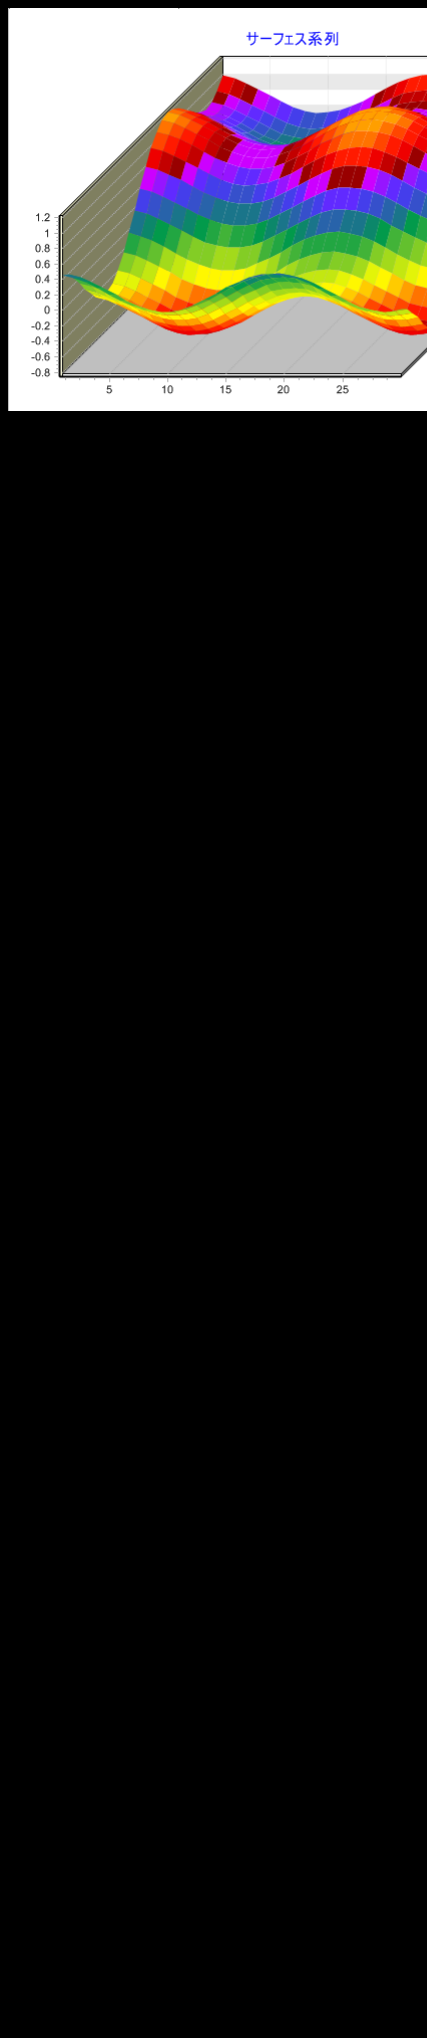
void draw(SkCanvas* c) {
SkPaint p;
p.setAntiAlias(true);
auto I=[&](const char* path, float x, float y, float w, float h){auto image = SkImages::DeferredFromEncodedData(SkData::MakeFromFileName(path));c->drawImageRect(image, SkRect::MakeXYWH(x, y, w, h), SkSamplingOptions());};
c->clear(0xff000000);
I("1.png",8,8,419,403);
}
